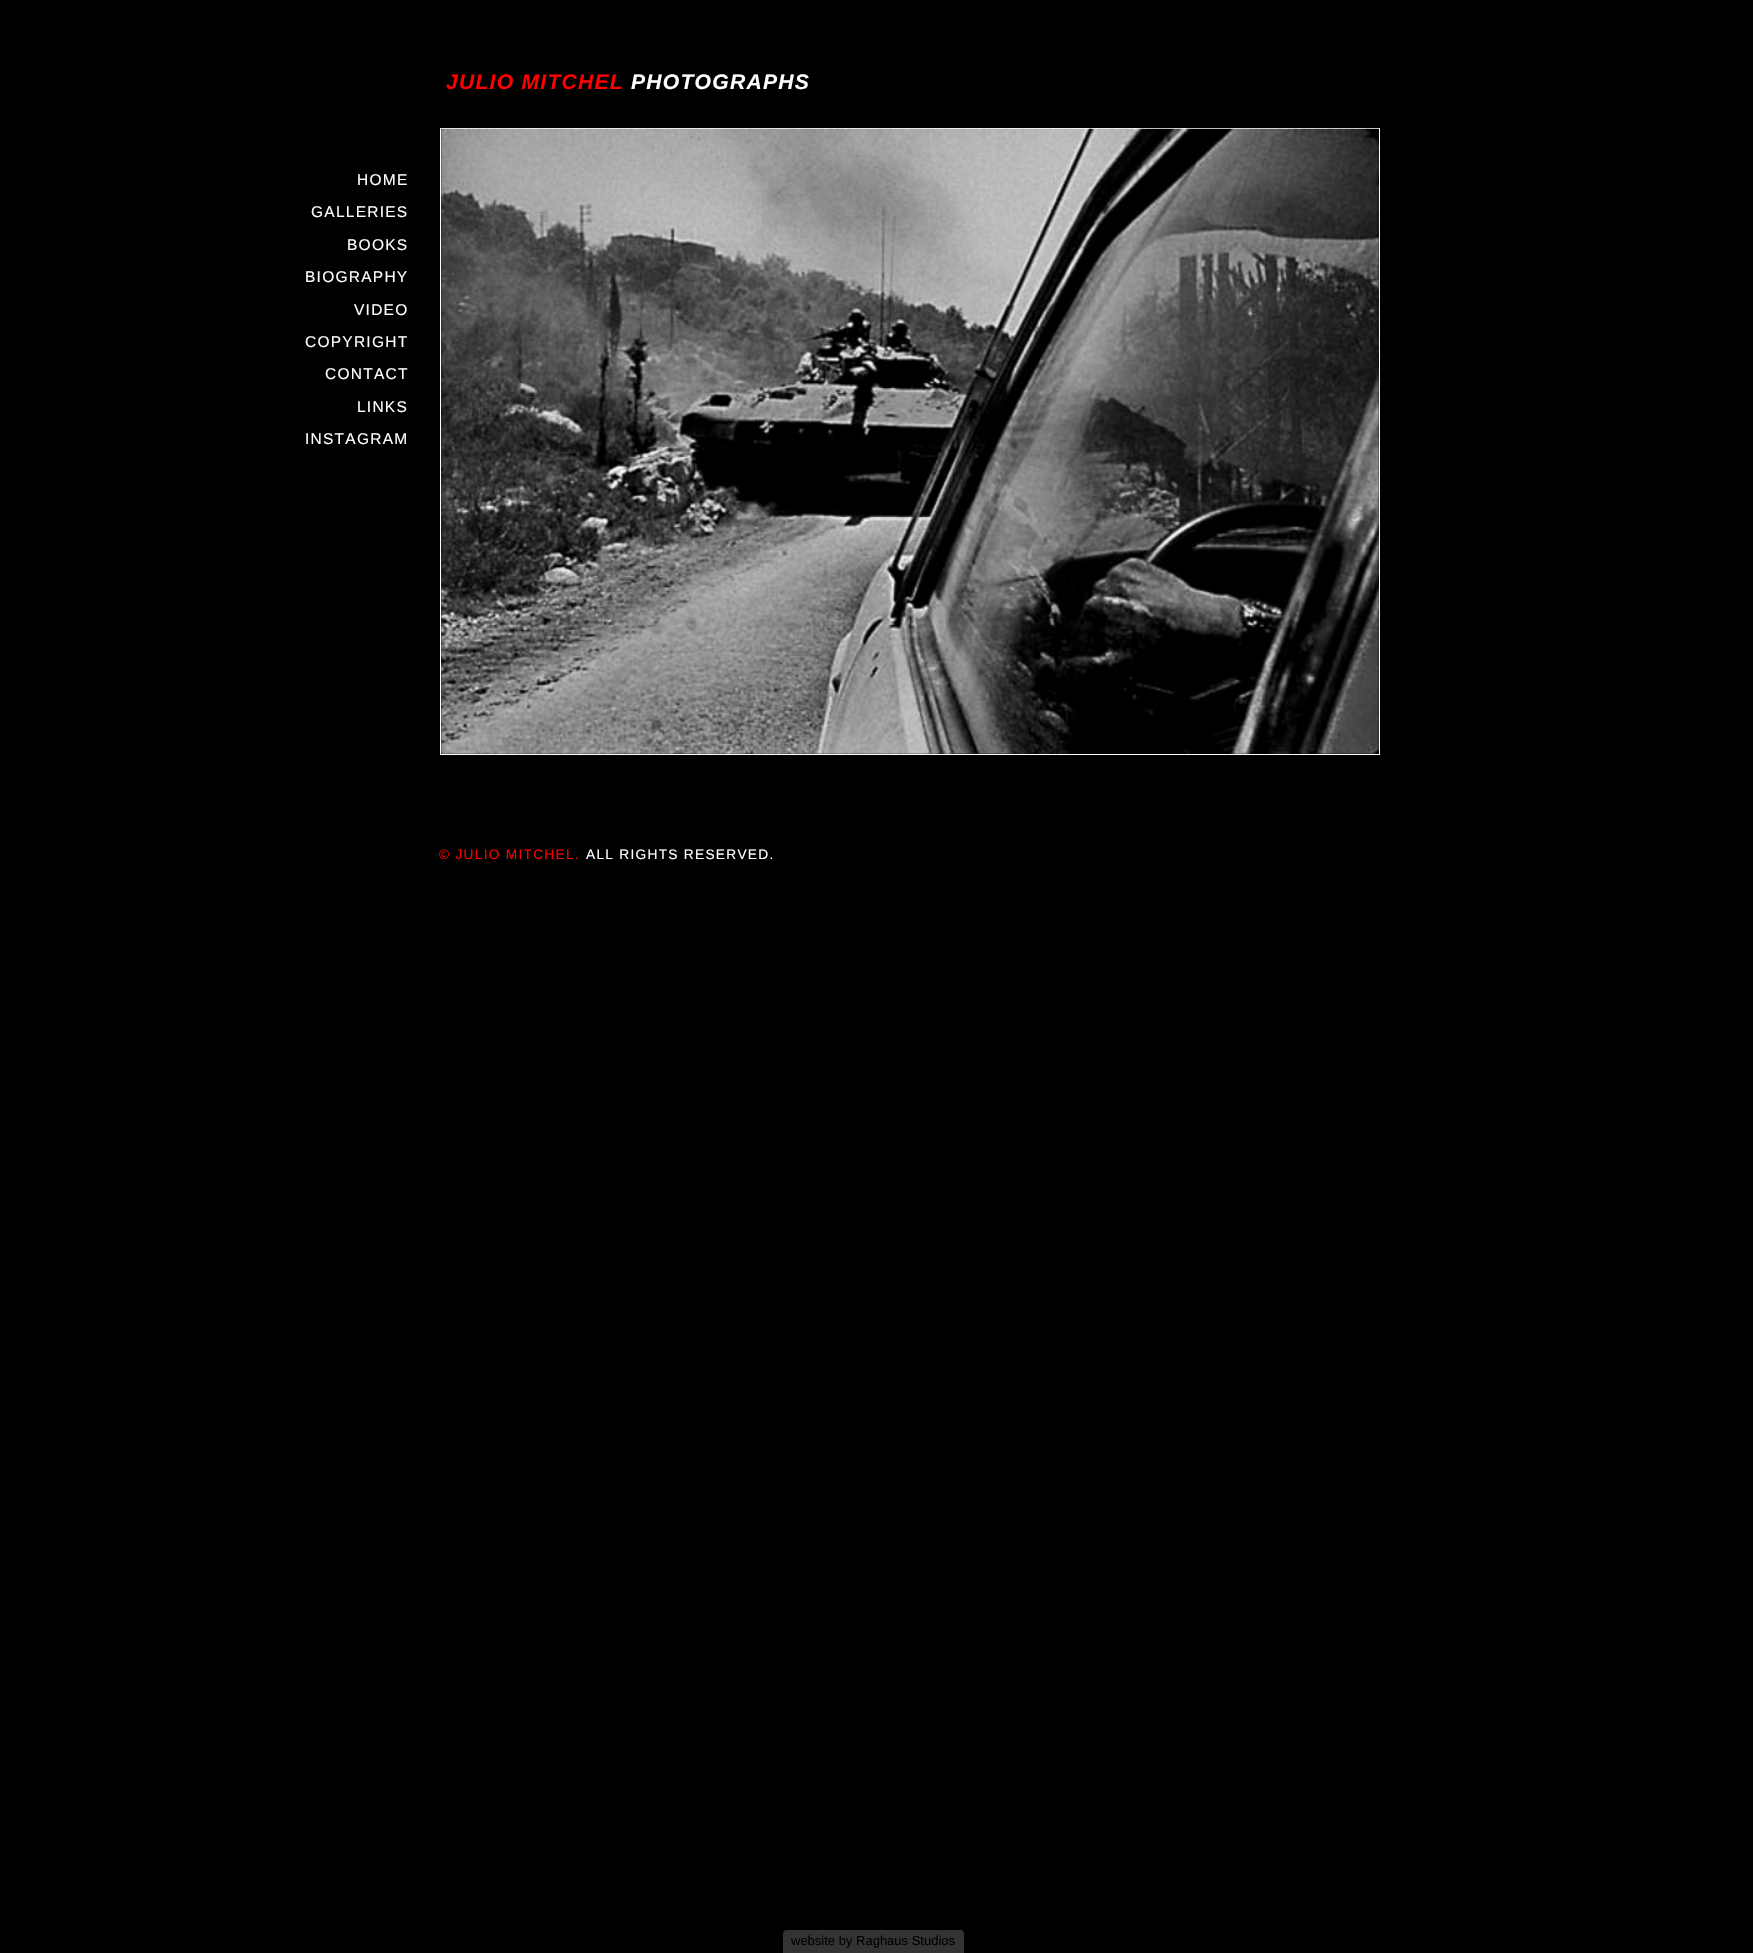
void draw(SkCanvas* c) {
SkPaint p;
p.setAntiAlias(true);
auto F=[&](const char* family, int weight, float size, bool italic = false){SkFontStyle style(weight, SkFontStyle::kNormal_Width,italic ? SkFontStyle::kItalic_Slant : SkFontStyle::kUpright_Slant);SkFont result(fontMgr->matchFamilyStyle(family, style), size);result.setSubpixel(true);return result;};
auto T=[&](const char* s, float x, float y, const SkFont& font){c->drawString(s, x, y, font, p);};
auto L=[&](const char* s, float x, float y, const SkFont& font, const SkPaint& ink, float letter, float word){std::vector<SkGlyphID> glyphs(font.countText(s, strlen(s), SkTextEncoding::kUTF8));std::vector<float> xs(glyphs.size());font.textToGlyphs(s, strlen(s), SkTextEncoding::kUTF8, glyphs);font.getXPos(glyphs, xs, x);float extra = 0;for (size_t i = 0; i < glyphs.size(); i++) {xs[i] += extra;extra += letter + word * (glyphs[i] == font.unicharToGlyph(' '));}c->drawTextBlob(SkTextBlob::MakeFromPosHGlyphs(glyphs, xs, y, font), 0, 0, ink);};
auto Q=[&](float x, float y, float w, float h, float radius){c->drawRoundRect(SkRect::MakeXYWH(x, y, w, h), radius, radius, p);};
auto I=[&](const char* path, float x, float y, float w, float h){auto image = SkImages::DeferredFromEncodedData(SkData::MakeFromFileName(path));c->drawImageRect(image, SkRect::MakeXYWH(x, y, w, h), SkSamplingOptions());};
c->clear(0xff000000);
auto f1 = F("Liberation Sans",700,21.1,true);
p.setColor(0xffff0000);
L("JULIO MITCHEL",446,89,f1,p,1.25,0);
p.setColor(0xffffffff);
L("PHOTOGRAPHS",631,89,f1,p,1.25,0);
auto f2 = F("Liberation Sans",400,15.5);
L("HOME",357,185,f2,p,1.25,0);
L("GALLERIES",311,217,f2,p,1.25,0);
L("BOOKS",347,250,f2,p,1.25,0);
L("BIOGRAPHY",305,282,f2,p,1.25,0);
L("VIDEO",354,315,f2,p,1.25,0);
L("COPYRIGHT",305,347,f2,p,1.25,0);
L("CONTACT",325,379,f2,p,1.25,0);
L("LINKS",357,412,f2,p,1.25,0);
L("INSTAGRAM",305,444,f2,p,1.25,0);
p.setStroke(true);
p.setStrokeWidth(1);
c->drawRect(SkRect::MakeXYWH(440.5,128.5,939,626),p);
I("1.png",441,128,938,626);
auto f3 = F("Liberation Sans",400,13.75);
p.setStroke(false);
p.setColor(0xffff0000);
L("© JULIO MITCHEL.",439,859,f3,p,1.25,0);
p.setColor(0xffffffff);
L("ALL RIGHTS RESERVED.",586,859,f3,p,1.25,0);
p.setColor(0xff333333);
Q(783,1930,181,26,4);
auto f4 = F("Liberation Sans",400,13);
p.setColor(0xff000000);
T("website by Raghaus Studios",791,1945,f4);
}
